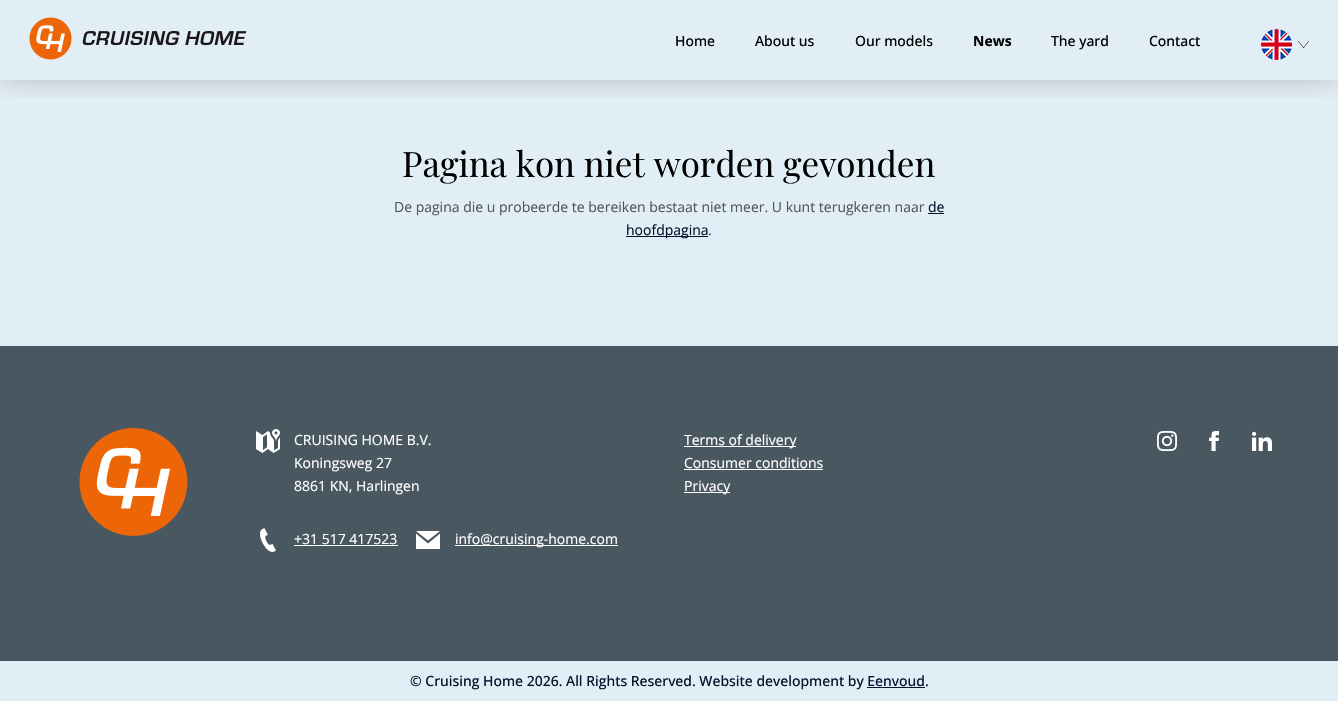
void draw(SkCanvas* c) {
SkPaint p;
p.setAntiAlias(true);
auto F=[&](const char* family, int weight, float size, bool italic = false){SkFontStyle style(weight, SkFontStyle::kNormal_Width,italic ? SkFontStyle::kItalic_Slant : SkFontStyle::kUpright_Slant);SkFont result(fontMgr->matchFamilyStyle(family, style), size);result.setSubpixel(true);return result;};
auto T=[&](const char* s, float x, float y, const SkFont& font){c->drawString(s, x, y, font, p);};
auto R=[&](float x, float y, float w, float h){c->drawRect(SkRect::MakeXYWH(x, y, w, h), p);};
auto I=[&](const char* path, float x, float y, float w, float h){auto image = SkImages::DeferredFromEncodedData(SkData::MakeFromFileName(path));c->drawImageRect(image, SkRect::MakeXYWH(x, y, w, h), SkSamplingOptions());};
auto P=[&](const char* data, bool evenOdd = false){SkPath result = *SkParsePath::FromSVGString(data);if (evenOdd) result.setFillType(SkPathFillType::kEvenOdd);return result;};
c->clear(0xffe2eef5);
c->save();
c->clipRect(SkRect::MakeXYWH(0,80,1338,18));
p.setColor(0x33000000);
p.setMaskFilter(SkMaskFilter::MakeBlur(kNormal_SkBlurStyle, 14));
c->drawRect(SkRect::MakeXYWH(0,0,1338,80),p);
p.setMaskFilter(nullptr);
c->restore();
I("1.png",29,17,218,43);
auto f1 = F("Open Sans",500,14);
p.setColor(0xff000000);
T("Home",675,46,f1);
T("About us",755,46,f1);
T("Our models",855,46,f1);
auto f2 = F("Open Sans",700,14);
T("News",973,46,f2);
T("The yard",1051,46,f1);
T("Contact",1149,46,f1);
I("2.png",1261,29,31,31);
I("3.png",1298,40,11,8);
auto f3 = F("Playfair Display",400,35);
T("Pagina kon niet worden gevonden",402,177,f3);
auto f4 = F("Open Sans",400,14);
p.setColor(0xff515562);
T("De pagina die u probeerde te bereiken bestaat niet meer. U kunt terugkeren naar",394,212,f4);
p.setColor(0xff04132d);
T("de",928,212,f4);
R(928,213,16,1);
R(626,236,82,1);
T("hoofdpagina",626,235,f4);
p.setColor(0xff515562);
T(".",708,235,f4);
p.setColor(0xff495860);
R(0,346,1338,315);
I("4.png",79,428,109,108);
I("5.png",256,429,24,24);
p.setColor(0xffffffff);
T("CRUISING HOME B.V.",294,445,f4);
T("Koningsweg 27",294,468,f4);
T("8861 KN, Harlingen",294,491,f4);
I("6.png",260,528,16,24);
T("+31 517 417523",294,544,f4);
R(294,545,104,1);
c->drawPath(P("M428 540.5l-12-9.5h24zm0 3l-12-10v15.5h24v-15.5z"),p);
R(455,545,163,1);
T("info@cruising-home.com",455,544,f4);
R(684,446,112,1);
T("Terms of delivery",684,445,f4);
T("Consumer conditions",684,468,f4);
R(684,469,139,1);
R(684,492,46,1);
T("Privacy",684,491,f4);
I("7.png",1157,431,20,20);
I("8.png",1209,431,10,20);
I("9.png",1252,431,20,20);
p.setColor(0xff04132d);
T("© Cruising Home 2026. All Rights Reserved. Website development by Eenvoud.",410,686,f1);
R(867,687,58,1);
}
